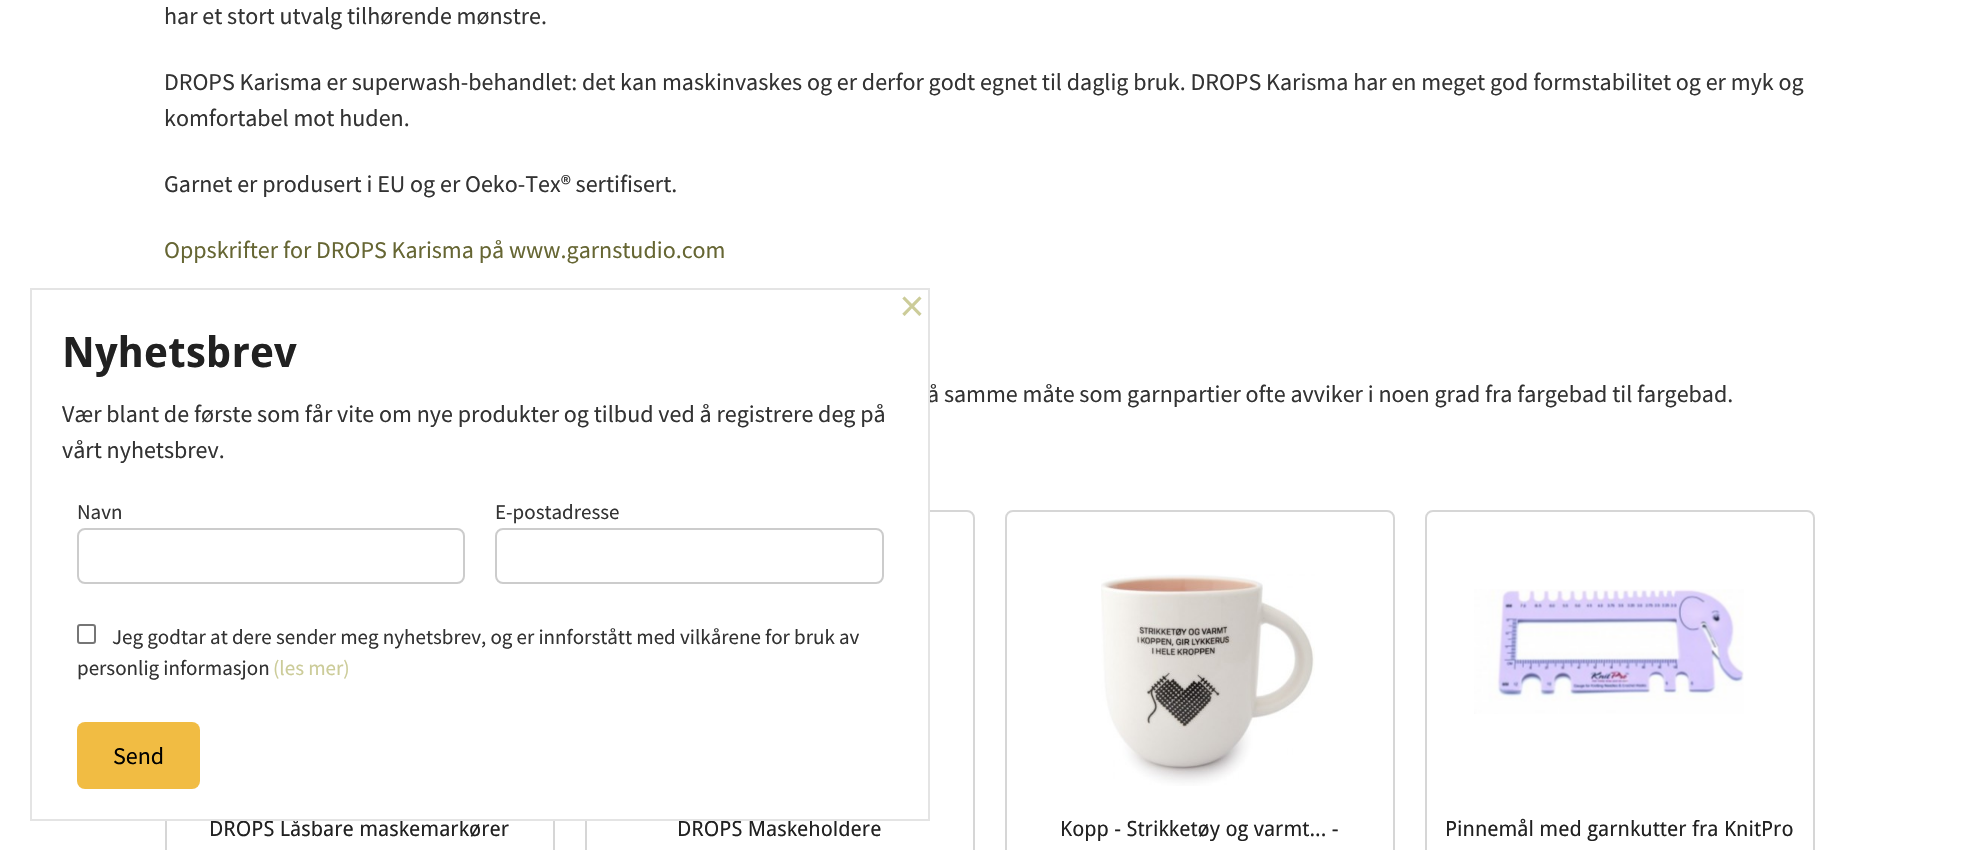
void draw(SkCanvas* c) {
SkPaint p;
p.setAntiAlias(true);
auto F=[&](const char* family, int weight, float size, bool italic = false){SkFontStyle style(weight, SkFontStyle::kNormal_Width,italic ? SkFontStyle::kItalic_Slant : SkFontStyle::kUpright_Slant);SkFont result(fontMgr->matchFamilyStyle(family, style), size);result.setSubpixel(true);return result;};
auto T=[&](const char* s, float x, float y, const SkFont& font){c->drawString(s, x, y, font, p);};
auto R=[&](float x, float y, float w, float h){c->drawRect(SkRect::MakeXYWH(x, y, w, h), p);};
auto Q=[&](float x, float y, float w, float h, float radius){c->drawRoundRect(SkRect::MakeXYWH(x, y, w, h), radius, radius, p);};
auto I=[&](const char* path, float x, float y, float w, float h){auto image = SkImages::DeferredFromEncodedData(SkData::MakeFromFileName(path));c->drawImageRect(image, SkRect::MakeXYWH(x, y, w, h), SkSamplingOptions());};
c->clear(0xffffffff);
auto f1 = F("Source Sans Pro",400,24);
p.setColor(0xff333333);
T("har et stort utvalg tilhørende mønstre.",164,24,f1);
T("DROPS Karisma er superwash-behandlet: det kan maskinvaskes og er derfor godt egnet til daglig bruk. DROPS Karisma har en meget god formstabilitet og er myk og",164,90,f1);
T("komfortabel mot huden.",164,126,f1);
T("Garnet er produsert i EU og er Oeko-Tex® sertifisert.",164,192,f1);
p.setColor(0xff666633);
T("Oppskrifter for DROPS Karisma på www.garnstudio.com",164,258,f1);
p.setColor(0xff333333);
T("å samme måte som garnpartier ofte avviker i noen grad fra fargebad til fargebad.",927,402,f1);
p.setStroke(true);
p.setStrokeWidth(2);
p.setColor(0xffd6d6d6);
c->drawRect(SkRect::MakeXYWH(166,511,388,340),p);
auto f2 = F("Droid Sans",400,21);
p.setStroke(false);
p.setColor(0xff212121);
T("DROPS Låsbare maskemarkører",209,836,f2);
p.setStroke(true);
p.setColor(0xffd6d6d6);
c->drawRoundRect(SkRect::MakeXYWH(586,511,388,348),7,7,p);
p.setStroke(false);
p.setColor(0xff212121);
T("DROPS Maskeholdere",677,836,f2);
p.setStroke(true);
p.setColor(0xffd6d6d6);
c->drawRoundRect(SkRect::MakeXYWH(1006,511,388,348),7,7,p);
I("1.png",1101,574,214,212);
p.setStroke(false);
p.setColor(0xff212121);
T("Kopp - Strikketøy og varmt... -",1060,836,f2);
p.setStroke(true);
p.setColor(0xffd6d6d6);
c->drawRoundRect(SkRect::MakeXYWH(1426,511,388,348),7,7,p);
I("2.png",1474,589,270,125);
p.setStroke(false);
p.setColor(0xff212121);
T("Pinnemål med garnkutter fra KnitPro",1445,836,f2);
p.setColor(0xffffffff);
R(165,510,763,309);
p.setStroke(true);
p.setColor(0xffe4e4e4);
c->drawRect(SkRect::MakeXYWH(31,289,898,531),p);
auto f3 = F("Source Sans Pro",400,48);
p.setStroke(false);
p.setColor(0xffcccc99);
T("×",900,322,f3);
auto f4 = F("Droid Sans",700,42);
p.setColor(0xff212121);
T("Nyhetsbrev",62,367,f4);
p.setColor(0xff333333);
T("Vær blant de første som får vite om nye produkter og tilbud ved å registrere deg på",62,422,f1);
T("vårt nyhetsbrev.",62,458,f1);
auto f5 = F("Source Sans Pro",400,21);
T("Navn",77,519,f5);
p.setStroke(true);
p.setColor(0xffcccccc);
c->drawRoundRect(SkRect::MakeXYWH(78,529,386,54),7,7,p);
p.setStroke(false);
p.setColor(0xff333333);
T("E-postadresse",495,519,f5);
p.setStroke(true);
p.setColor(0xffcccccc);
c->drawRoundRect(SkRect::MakeXYWH(496,529,387,54),7,7,p);
p.setColor(0xff767676);
c->drawRoundRect(SkRect::MakeXYWH(78,625,17,18),2,2,p);
p.setStroke(false);
p.setColor(0xff333333);
T("Jeg godtar at dere sender meg nyhetsbrev, og er innforstått med vilkårene for bruk av",112,644,f5);
T("personlig informasjon",77,675,f5);
p.setColor(0xffcccc99);
T("(les mer)",273,675,f5);
p.setColor(0xfff1bc43);
Q(77,722,123,67,8);
p.setColor(0xff000000);
T("Send",113,764,f1);
}
